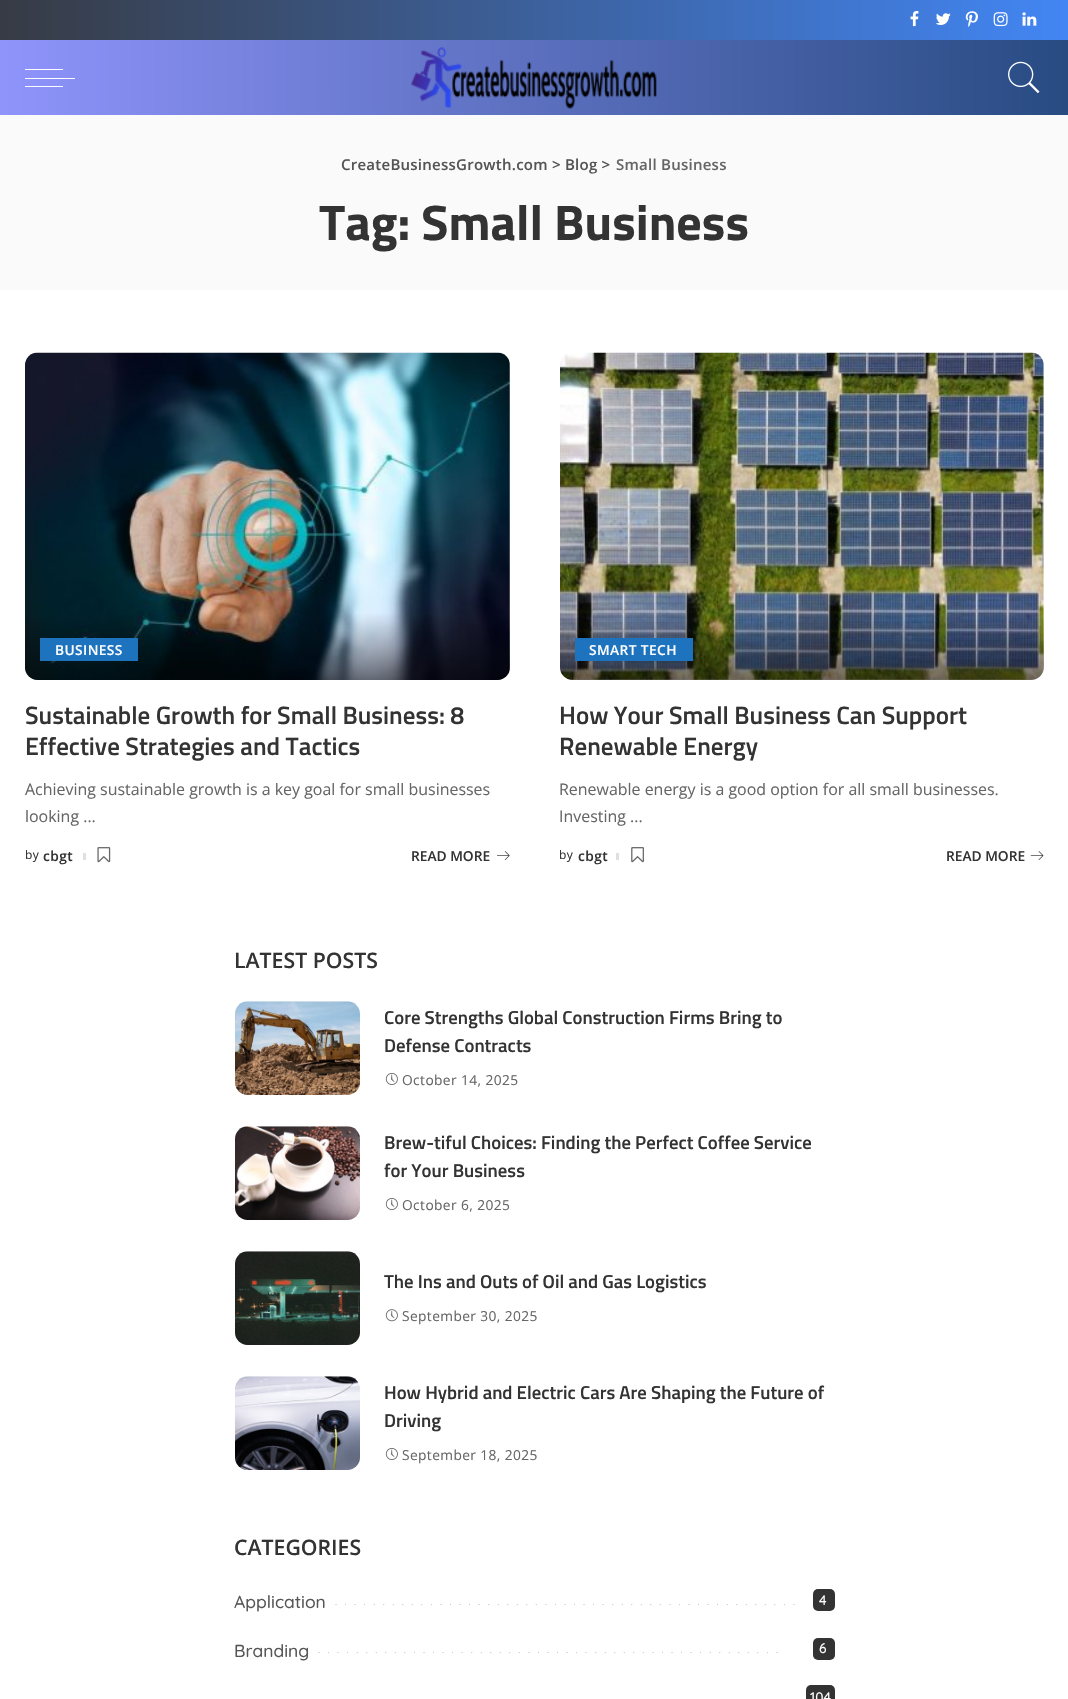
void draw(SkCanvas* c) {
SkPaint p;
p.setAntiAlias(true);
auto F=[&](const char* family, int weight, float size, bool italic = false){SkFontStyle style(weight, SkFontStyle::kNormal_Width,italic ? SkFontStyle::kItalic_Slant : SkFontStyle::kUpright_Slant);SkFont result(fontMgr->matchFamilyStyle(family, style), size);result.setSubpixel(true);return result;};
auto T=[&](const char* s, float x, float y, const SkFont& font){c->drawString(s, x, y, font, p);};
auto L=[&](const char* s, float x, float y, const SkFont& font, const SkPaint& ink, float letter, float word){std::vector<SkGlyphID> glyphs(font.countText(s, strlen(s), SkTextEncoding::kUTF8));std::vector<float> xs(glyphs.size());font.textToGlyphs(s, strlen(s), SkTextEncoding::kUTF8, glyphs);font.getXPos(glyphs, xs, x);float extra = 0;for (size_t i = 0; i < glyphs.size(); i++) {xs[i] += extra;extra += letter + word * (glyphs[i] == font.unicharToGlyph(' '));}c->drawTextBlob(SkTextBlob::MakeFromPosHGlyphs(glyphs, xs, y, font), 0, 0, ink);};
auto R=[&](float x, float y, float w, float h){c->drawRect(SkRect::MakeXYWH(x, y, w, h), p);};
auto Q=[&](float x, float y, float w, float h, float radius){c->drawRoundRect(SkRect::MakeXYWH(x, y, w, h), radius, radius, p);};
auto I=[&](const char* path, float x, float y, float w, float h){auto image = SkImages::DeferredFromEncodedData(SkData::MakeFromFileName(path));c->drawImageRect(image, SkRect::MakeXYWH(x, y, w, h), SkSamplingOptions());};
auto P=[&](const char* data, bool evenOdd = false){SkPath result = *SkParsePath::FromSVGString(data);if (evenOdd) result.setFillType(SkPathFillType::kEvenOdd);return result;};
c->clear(0xffffffff);
{
const SkColor colors[] = {0xff373b44,0xff4286f4};
const float stops[] = {0,1};
const SkPoint ends[] = {{0,20}, {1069,20}};
p.setShader(SkGradientShader::MakeLinear(ends, colors, stops, 2, SkTileMode::kClamp));
p.setAlpha(255);
}
R(0,0,1068,40);
I("1.png",910,11,9,16);
I("2.png",935,13,16,12);
I("3.png",965,11,13,16);
I("4.png",993,12,15,15);
I("5.png",1022,12,15,14);
{
const SkColor colors[] = {0xff8f94fb,0xff284b82};
const float stops[] = {0,1};
const SkPoint ends[] = {{0,78}, {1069,77}};
p.setShader(SkGradientShader::MakeLinear(ends, colors, stops, 2, SkTileMode::kClamp));
p.setAlpha(255);
}
R(0,40,1068,75);
p.setShader(nullptr);
p.setColor(0xffffffff);
R(25,78,50,1);
R(25,69,38,1);
R(25,86,38,1);
I("6.png",411,47,246,62);
I("7.png",1008,61,32,33);
p.setColor(0xfffafafa);
R(0,115,1068,175);
auto f1 = F("Open Sans",600,15);
p.setColor(0xff555555);
L("CreateBusinessGrowth.com > Blog >",341,170,f1,p,.25,0);
p.setColor(0xff666666);
L("Small Business",616,170,f1,p,.25,0);
auto f2 = F("Titillium Web",700,50);
p.setColor(0xff333333);
T("Tag: Small Business",319,240,f2);
I("8.png",25,352,485,328);
{
const SkColor colors[] = {0x00000000,0x80000000};
const float stops[] = {0,1};
const SkPoint ends[] = {{268,613}, {268,680}};
p.setShader(SkGradientShader::MakeLinear(ends, colors, stops, 2, SkTileMode::kClamp));
p.setAlpha(255);
}
c->drawPath(P("M25 613h485v54c0 7-6 13-13 13h-459c-7 0-13-6-13-13z"),p);
p.setShader(nullptr);
p.setColor(0xff1e73be);
R(40,638,98,23);
auto f3 = F("Open Sans",600,13.75);
p.setColor(0xffffffff);
L("BUSINESS",55,655,f3,p,.4,0);
auto f4 = F("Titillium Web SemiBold",600,25);
p.setColor(0xff333333);
T("Sustainable Growth for Small Business: 8",25,724,f4);
T("Effective Strategies and Tactics",25,755,f4);
auto f5 = F("Open Sans",400,15.95);
p.setColor(0xff666666);
T("Achieving sustainable growth is a key goal for small businesses",25,795,f5);
T("looking ...",25,822,f5);
auto f6 = F("Open Sans",400,12);
p.setColor(0xff333333);
L("by",25,859,f6,p,.4,0);
L("cbgt",43,861,f3,p,.4,0);
p.setColor(0xffe0e0e0);
R(83,853,3,7);
I("9.png",97,847,14,16);
p.setColor(0xff333333);
T("READ MORE",411,861,f3);
I("10.png",497,851,13,9);
I("11.png",560,352,484,328);
{
const SkColor colors[] = {0x00000000,0x80000000};
const float stops[] = {0,1};
const SkPoint ends[] = {{802,613}, {802,680}};
p.setShader(SkGradientShader::MakeLinear(ends, colors, stops, 2, SkTileMode::kClamp));
p.setAlpha(255);
}
c->drawPath(P("M560 613h484v54c0 7-6 13-13 13h-458c-7 0-13-6-13-13z"),p);
p.setShader(nullptr);
p.setColor(0xff1e73be);
R(575,638,118,23);
p.setColor(0xffffffff);
L("SMART TECH",589,655,f3,p,.4,0);
p.setColor(0xff333333);
T("How Your Small Business Can Support",559,724,f4);
T("Renewable Energy",559,755,f4);
p.setColor(0xff666666);
T("Renewable energy is a good option for all small businesses.",559,795,f5);
T("Investing ...",559,822,f5);
p.setColor(0xff333333);
L("by",559,859,f6,p,.4,0);
L("cbgt",578,861,f3,p,.4,0);
p.setColor(0xffe0e0e0);
R(616,853,3,7);
I("12.png",631,847,13,16);
p.setColor(0xff333333);
T("READ MORE",946,861,f3);
I("13.png",1030,851,14,9);
auto f7 = F("Open Sans",600,21.25);
T("LATEST POSTS",234,968,f7);
I("14.png",235,1001,125,94);
auto f8 = F("Titillium Web SemiBold",600,18.75);
T("Core Strengths Global Construction Firms Bring to",384,1024,f8);
T("Defense Contracts",384,1052,f8);
I("15.png",385,1073,13,12);
auto f9 = F("Open Sans",400,13.75);
p.setColor(0xff666666);
L("October 14, 2025",402,1085,f9,p,.4,0);
I("16.png",235,1126,125,94);
p.setColor(0xff333333);
T("Brew-tiful Choices: Finding the Perfect Coffee Service",384,1149,f8);
T("for Your Business",384,1177,f8);
I("15.png",385,1198,13,12);
p.setColor(0xff666666);
L("October 6, 2025",402,1210,f9,p,.4,0);
I("17.png",235,1251,125,94);
p.setColor(0xff333333);
T("The Ins and Outs of Oil and Gas Logistics",384,1288,f8);
I("18.png",385,1309,13,13);
p.setColor(0xff666666);
L("September 30, 2025",402,1321,f9,p,.4,0);
I("19.png",235,1376,125,94);
p.setColor(0xff333333);
T("How Hybrid and Electric Cars Are Shaping the Future of",384,1399,f8);
T("Driving",384,1427,f8);
I("15.png",385,1448,13,12);
p.setColor(0xff666666);
L("September 18, 2025",402,1460,f9,p,.4,0);
p.setColor(0xff333333);
T("CATEGORIES",234,1555,f7);
auto f10 = F("Quicksand",500,17.5);
p.setColor(0xff555555);
T("Application",234,1608,f10);
auto f11 = F("Quicksand",500,10);
p.setColor(0xffbbbbbb);
L(".................................................",335,1605,f11,p,7.5,0);
p.setColor(0xff333333);
Q(813,1589,22,22,5);
auto f12 = F("Quicksand",500,13.75);
p.setColor(0xffffffff);
T("4",819,1605,f12);
p.setColor(0xff555555);
T("Branding",234,1657,f10);
p.setColor(0xffbbbbbb);
L(".................................................",318,1653,f11,p,7.5,0);
p.setColor(0xff333333);
Q(813,1638,22,22,5);
p.setColor(0xffffffff);
T("6",819,1653,f12);
p.setColor(0xff333333);
Q(806,1685,29,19,5);
p.setColor(0xffffffff);
T("104",810,1702,f12);
}
